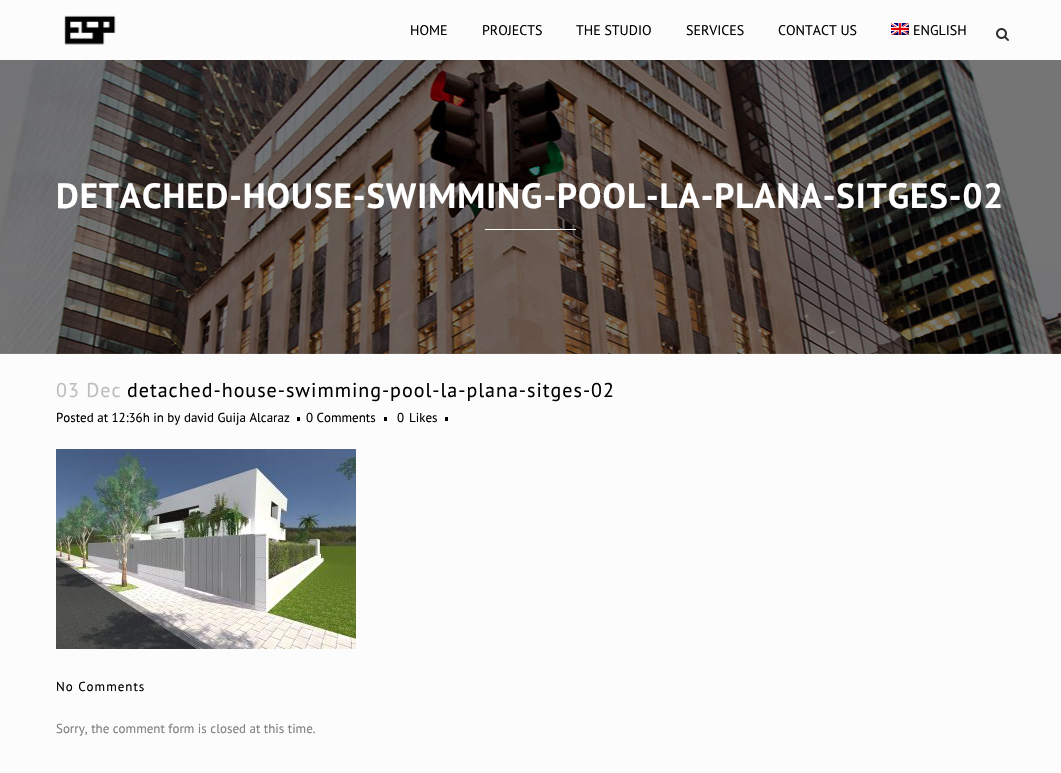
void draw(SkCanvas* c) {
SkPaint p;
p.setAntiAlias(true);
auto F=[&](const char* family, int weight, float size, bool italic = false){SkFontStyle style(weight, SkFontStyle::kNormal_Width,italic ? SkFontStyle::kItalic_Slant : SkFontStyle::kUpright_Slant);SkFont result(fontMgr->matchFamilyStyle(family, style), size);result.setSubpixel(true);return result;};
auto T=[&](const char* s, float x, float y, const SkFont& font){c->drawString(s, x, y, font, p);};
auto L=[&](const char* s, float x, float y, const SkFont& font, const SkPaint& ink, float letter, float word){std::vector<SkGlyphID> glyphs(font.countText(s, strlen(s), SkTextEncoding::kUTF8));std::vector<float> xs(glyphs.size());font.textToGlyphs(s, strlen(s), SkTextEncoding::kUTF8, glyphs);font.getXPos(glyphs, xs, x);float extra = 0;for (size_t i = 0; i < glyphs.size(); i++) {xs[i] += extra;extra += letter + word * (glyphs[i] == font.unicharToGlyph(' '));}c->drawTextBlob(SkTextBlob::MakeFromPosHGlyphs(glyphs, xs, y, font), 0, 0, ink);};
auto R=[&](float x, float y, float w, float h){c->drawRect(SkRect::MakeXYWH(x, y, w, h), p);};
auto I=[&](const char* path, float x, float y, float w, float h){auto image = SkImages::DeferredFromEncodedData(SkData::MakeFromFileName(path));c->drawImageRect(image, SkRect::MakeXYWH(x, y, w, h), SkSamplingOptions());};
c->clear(0xfffcfcfc);
I("1.png",64,15,52,30);
auto f1 = F("PT Sans",400,14);
p.setColor(0xff000000);
T("HOME",410,35,f1);
T("PROJECTS",482,35,f1);
T("THE STUDIO",576,35,f1);
T("SERVICES",686,35,f1);
T("CONTACT US",778,35,f1);
I("2.png",891,23,18,12);
T("ENGLISH",913,35,f1);
I("3.png",996,28,13,13);
I("4.png",0,60,1061,294);
auto f2 = F("PT Sans",700,35);
p.setColor(0xffffffff);
L("DETACHED-HOUSE-SWIMMING-POOL-LA-PLANA-SITGES-02",56,208,f2,p,1,0);
R(485,229,91,1);
auto f3 = F("PT Sans",400,20);
p.setColor(0xffbebebe);
L("03 Dec",56,397,f3,p,1,0);
p.setColor(0xff000000);
L("detached-house-swimming-pool-la-plana-sitges-02",127,397,f3,p,1,0);
auto f4 = F("PT Sans",400,13);
T("Posted at 12:36h in by david Guija Alcaraz",56,422,f4);
R(297,417,3,4);
T("0 Comments",306,422,f4);
R(384,417,3,4);
T("0",397,422,f4);
T("Likes",409,422,f4);
R(445,417,3,4);
I("5.png",56,449,300,200);
L("No Comments",56,691,f4,p,1,0);
p.setColor(0xff818181);
T("Sorry, the comment form is closed at this time.",56,733,f4);
}
